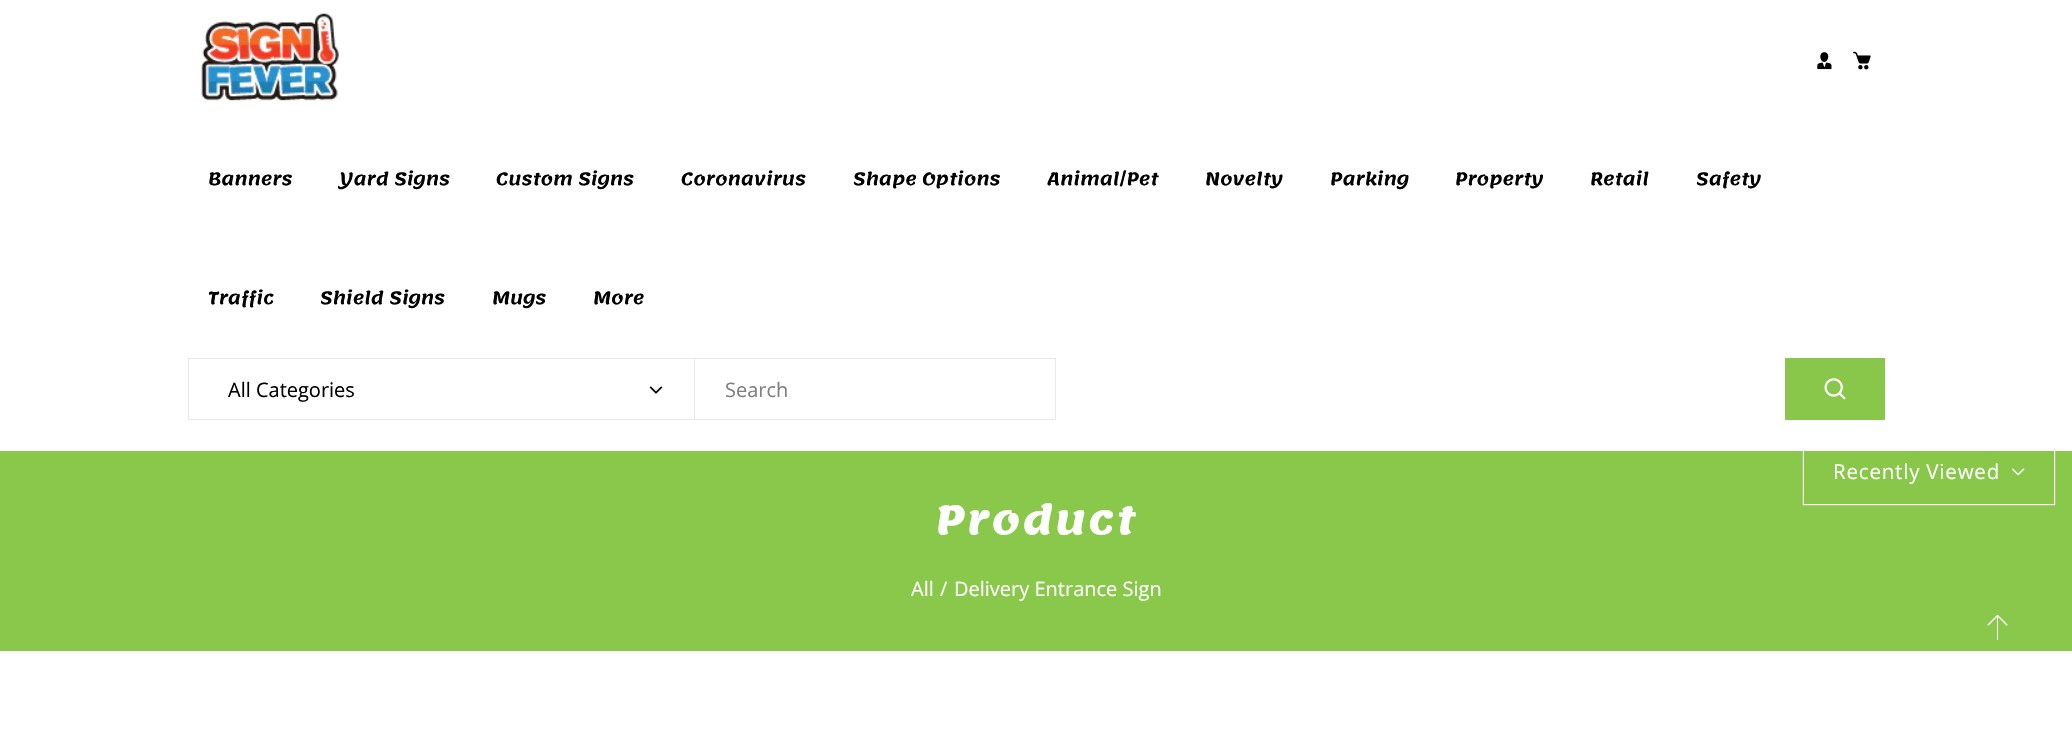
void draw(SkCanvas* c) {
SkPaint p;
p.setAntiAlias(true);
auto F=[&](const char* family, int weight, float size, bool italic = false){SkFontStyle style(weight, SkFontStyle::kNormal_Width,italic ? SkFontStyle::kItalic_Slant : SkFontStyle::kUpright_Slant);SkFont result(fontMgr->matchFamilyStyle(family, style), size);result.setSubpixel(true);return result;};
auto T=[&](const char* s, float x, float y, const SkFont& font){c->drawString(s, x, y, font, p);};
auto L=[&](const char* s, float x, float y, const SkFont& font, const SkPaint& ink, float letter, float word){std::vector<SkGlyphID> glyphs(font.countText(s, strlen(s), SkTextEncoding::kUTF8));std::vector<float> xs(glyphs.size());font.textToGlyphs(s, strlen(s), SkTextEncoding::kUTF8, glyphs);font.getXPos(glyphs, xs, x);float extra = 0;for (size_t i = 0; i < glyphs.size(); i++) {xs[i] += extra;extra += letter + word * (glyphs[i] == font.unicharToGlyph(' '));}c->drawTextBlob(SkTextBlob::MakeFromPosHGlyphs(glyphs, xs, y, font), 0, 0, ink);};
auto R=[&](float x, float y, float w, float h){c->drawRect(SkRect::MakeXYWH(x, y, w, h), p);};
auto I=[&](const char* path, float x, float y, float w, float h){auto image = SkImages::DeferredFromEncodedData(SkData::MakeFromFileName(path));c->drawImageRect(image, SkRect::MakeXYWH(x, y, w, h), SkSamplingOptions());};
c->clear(0xffffffff);
I("1.png",201,13,138,88);
I("2.png",1817,52,15,18);
I("3.png",1853,51,18,19);
auto f1 = F("Lemonada",600,17.5);
p.setColor(0xff000000);
T("Banners",208,185,f1);
T("Yard Signs",339,185,f1);
T("Custom Signs",496,185,f1);
T("Coronavirus",681,185,f1);
T("Shape Options",853,185,f1);
T("Animal/Pet",1047,185,f1);
T("Novelty",1205,185,f1);
T("Parking",1330,185,f1);
T("Property",1455,185,f1);
T("Retail",1590,185,f1);
T("Safety",1696,185,f1);
T("Traffic",208,304,f1);
T("Shield Signs",320,304,f1);
T("Mugs",492,304,f1);
T("More",593,304,f1);
p.setStroke(true);
p.setStrokeWidth(1);
p.setColor(0xffe9e9e9);
c->drawRect(SkRect::MakeXYWH(188.5,358.5,507,61),p);
auto f2 = F("Open Sans",400,20);
p.setStroke(false);
p.setColor(0xff000000);
T("All Categories",228,397,f2);
I("4.png",649,386,14,8);
p.setColor(0xffffffff);
R(695,359,1,60);
p.setStroke(true);
p.setColor(0xffe9e9e9);
c->drawRect(SkRect::MakeXYWH(694.5,358.5,361,61),p);
p.setStroke(false);
p.setColor(0xff808080);
T("Search",725,397,f2);
p.setColor(0xff89c74a);
R(1785,358,100,62);
I("5.png",1824,378,22,22);
p.setColor(0xff8ac84c);
R(0,451,2072,200);
p.setColor(0xffffffff);
p.setMaskFilter(SkMaskFilter::MakeBlur(kNormal_SkBlurStyle, .5));
c->drawRect(SkRect::MakeXYWH(1803,436,252,69),p);
p.setMaskFilter(nullptr);
p.setColor(0xff89c74a);
R(1804,451,250,53);
auto f3 = F("Open Sans",400,20.5);
p.setColor(0xffffffff);
L("Recently Viewed",1833,479,f3,p,.8,0);
I("6.png",2012,468,13,8);
auto f4 = F("Lemonada",700,40);
L("Product",936,534,f4,p,2.5,0);
T("All",911,596,f2);
T("/",940,596,f2);
T("Delivery Entrance Sign",954,596,f2);
I("7.png",1987,615,21,25);
}
